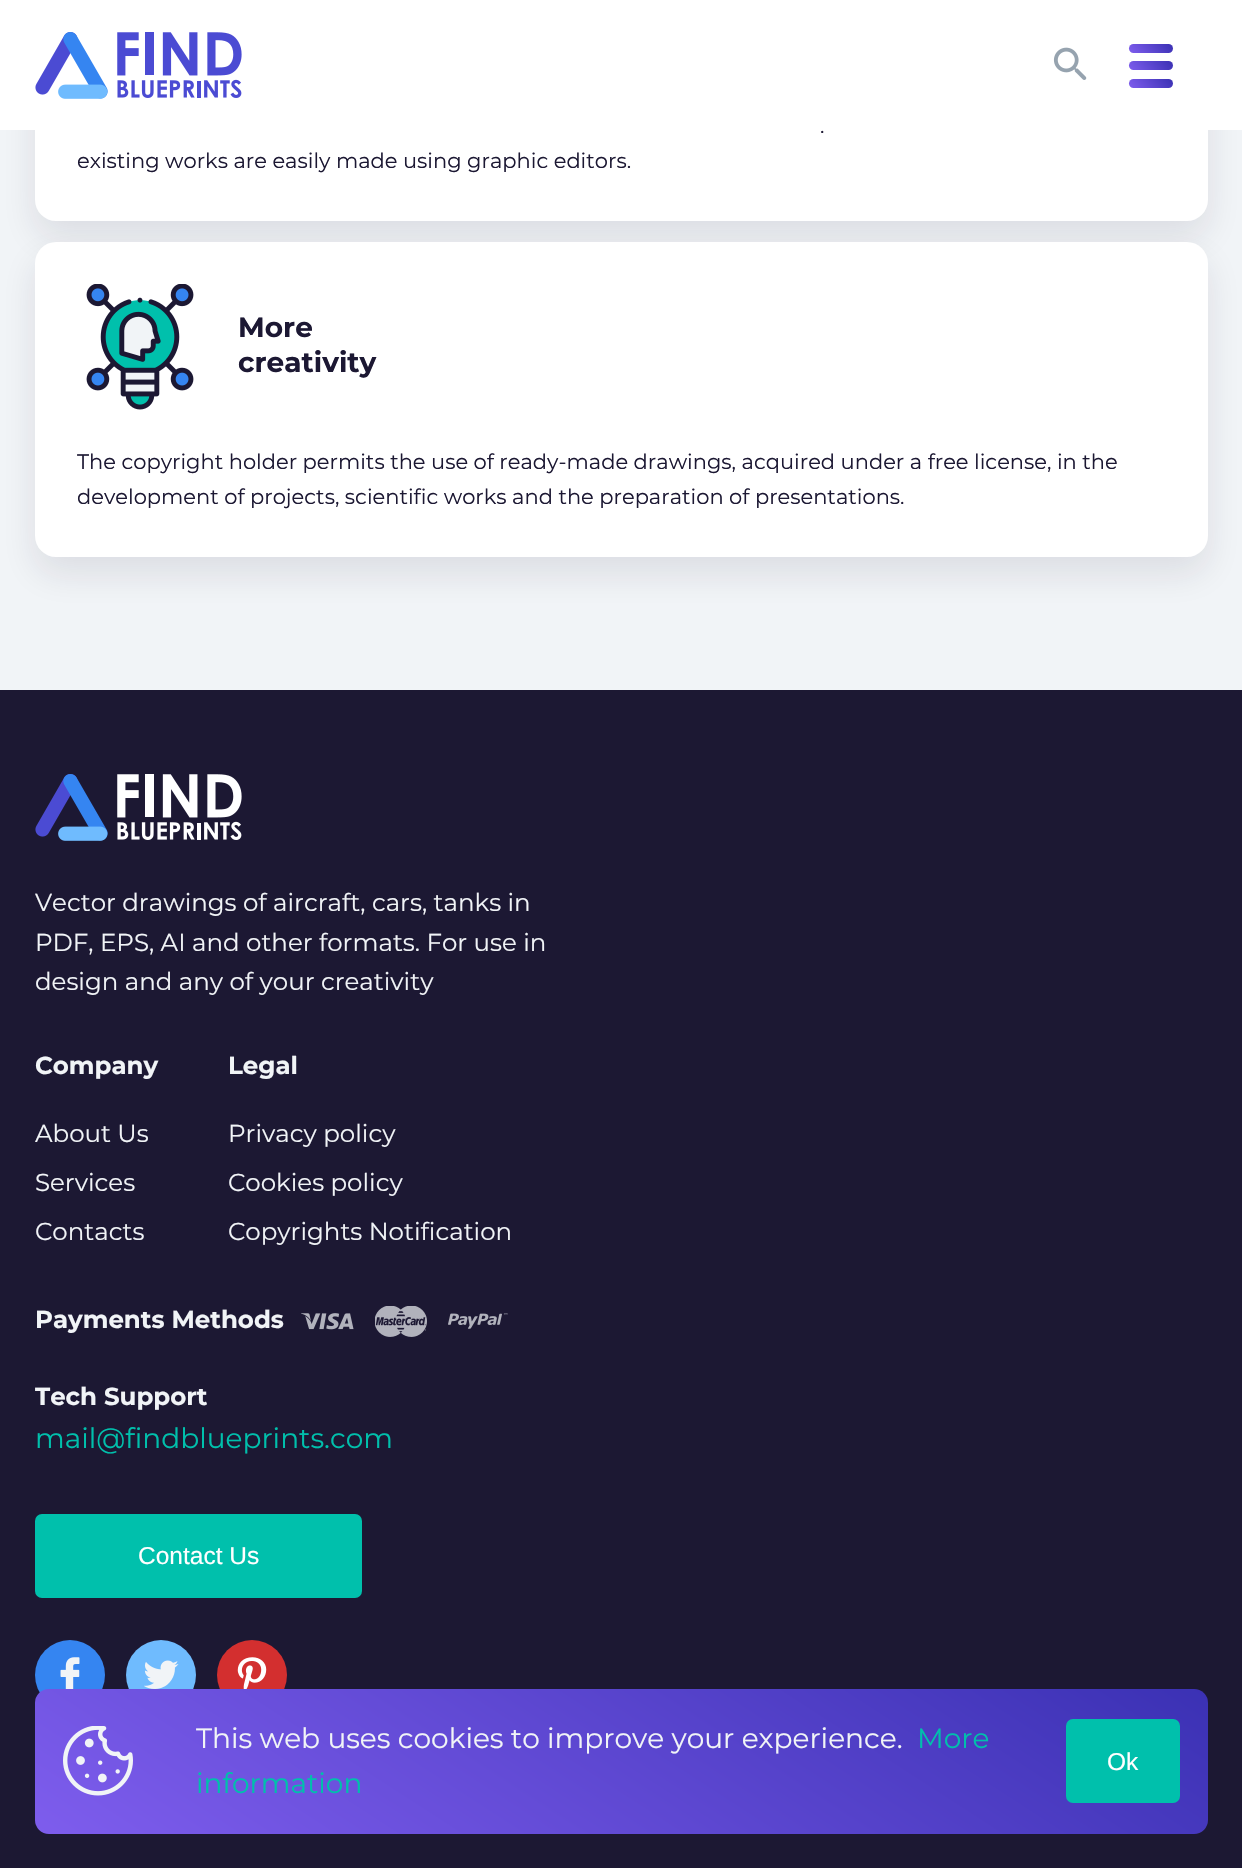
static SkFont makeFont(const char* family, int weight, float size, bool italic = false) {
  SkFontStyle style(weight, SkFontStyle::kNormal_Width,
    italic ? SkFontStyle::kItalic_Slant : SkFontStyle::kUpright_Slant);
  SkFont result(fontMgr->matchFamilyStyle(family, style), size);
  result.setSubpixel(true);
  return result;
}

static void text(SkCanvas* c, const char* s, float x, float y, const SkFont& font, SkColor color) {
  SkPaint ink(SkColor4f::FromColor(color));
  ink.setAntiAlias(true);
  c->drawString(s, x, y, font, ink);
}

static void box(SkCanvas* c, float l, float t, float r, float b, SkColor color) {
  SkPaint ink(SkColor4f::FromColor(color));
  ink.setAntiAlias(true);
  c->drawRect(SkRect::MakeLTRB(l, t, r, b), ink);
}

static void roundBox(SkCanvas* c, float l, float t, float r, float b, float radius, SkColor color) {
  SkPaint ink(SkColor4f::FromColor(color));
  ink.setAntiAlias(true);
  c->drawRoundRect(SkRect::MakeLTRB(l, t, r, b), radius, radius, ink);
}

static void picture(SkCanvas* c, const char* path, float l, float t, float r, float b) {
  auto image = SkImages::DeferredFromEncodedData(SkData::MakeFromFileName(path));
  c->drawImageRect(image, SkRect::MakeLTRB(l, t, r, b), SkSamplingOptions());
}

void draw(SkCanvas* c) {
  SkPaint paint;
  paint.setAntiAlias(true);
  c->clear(0xfff1f4f7);
  paint.setColor(0x1a1c1833);
  paint.setMaskFilter(SkMaskFilter::MakeBlur(kNormal_SkBlurStyle, 17.5f));
  c->drawRoundRect(SkRect::MakeLTRB(35, -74, 1208, 238), 21, 21, paint);
  paint.setMaskFilter(nullptr);
  roundBox(c, 35, -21, 1208, 221, 21, 0xffffffff);
  box(c, 0, 0, 1242, 130, 0xffffffff);
  picture(c, "img_01.png", 35, 32, 242, 99);
  picture(c, "img_02.png", 1053, 47, 1087, 80);
  {
    const SkColor colors[] = {0xff7e5ded, 0xff3b31b4};
    const float stops[] = {0, 1};
    const SkPoint ends[] = {{1135, 60}, {1166, 36}};
    paint.setShader(SkGradientShader::MakeLinear(ends, colors, stops, 2, SkTileMode::kClamp));
    paint.setAlpha(255);
  }
  c->drawRoundRect(SkRect::MakeLTRB(1129, 44, 1173, 53), 4.5f, 4.5f, paint);
  {
    const SkColor colors[] = {0xff7e5ded, 0xff3b31b4};
    const float stops[] = {0, 1};
    const SkPoint ends[] = {{1135, 78}, {1166, 53}};
    paint.setShader(SkGradientShader::MakeLinear(ends, colors, stops, 2, SkTileMode::kClamp));
    paint.setAlpha(255);
  }
  c->drawRoundRect(SkRect::MakeLTRB(1129, 61, 1173, 70), 4.5f, 4.5f, paint);
  {
    const SkColor colors[] = {0xff7e5ded, 0xff3b31b4};
    const float stops[] = {0, 1};
    const SkPoint ends[] = {{1135, 95}, {1166, 71}};
    paint.setShader(SkGradientShader::MakeLinear(ends, colors, stops, 2, SkTileMode::kClamp));
    paint.setAlpha(255);
  }
  c->drawRoundRect(SkRect::MakeLTRB(1129, 79, 1173, 88), 4.5f, 4.5f, paint);
  SkFont face1 = makeFont("Montserrat", 400, 21);
  text(c, ".", 820, 133, face1, 0xff1c1833);
  text(c, "existing works are easily made using graphic editors.", 77, 168, face1, 0xff1c1833);
  paint.setShader(nullptr);
  paint.setColor(0x1a1c1833);
  paint.setMaskFilter(SkMaskFilter::MakeBlur(kNormal_SkBlurStyle, 17.5f));
  c->drawRoundRect(SkRect::MakeLTRB(35, 259, 1208, 574), 21, 21, paint);
  paint.setMaskFilter(nullptr);
  roundBox(c, 35, 242, 1208, 557, 21, 0xffffffff);
  picture(c, "img_03.png", 86, 284, 194, 410);
  SkFont face2 = makeFont("Montserrat", 700, 28);
  text(c, "More", 238, 337, face2, 0xff1c1833);
  text(c, "creativity", 238, 372, face2, 0xff1c1833);
  text(c, "The copyright holder permits the use of ready-made drawings, acquired under a free license, in the", 77, 469, face1, 0xff1c1833);
  text(c, "development of projects, scientific works and the preparation of presentations.", 77, 504, face1, 0xff1c1833);
  box(c, 0, 690, 1242, 1868, 0xff1c1833);
  picture(c, "img_04.png", 35, 774, 242, 841);
  SkFont face3 = makeFont("Montserrat", 400, 24.5f);
  text(c, "Vector drawings of aircraft, cars, tanks in", 35, 911, face3, 0xfff1f4f7);
  text(c, "PDF, EPS, AI and other formats. For use in", 35, 951, face3, 0xfff1f4f7);
  text(c, "design and any of your creativity", 35, 990, face3, 0xfff1f4f7);
  SkFont face4 = makeFont("Montserrat", 700, 24.5f);
  text(c, "Company", 35, 1074, face4, 0xfff1f4f7);
  text(c, "About Us", 35, 1142, face3, 0xfff1f4f7);
  text(c, "Services", 35, 1191, face3, 0xfff1f4f7);
  text(c, "Contacts", 35, 1240, face3, 0xfff1f4f7);
  text(c, "Legal", 228, 1074, face4, 0xfff1f4f7);
  text(c, "Privacy policy", 228, 1142, face3, 0xfff1f4f7);
  text(c, "Cookies policy", 228, 1191, face3, 0xfff1f4f7);
  text(c, "Copyrights Notification", 228, 1240, face3, 0xfff1f4f7);
  text(c, "Payments Methods", 35, 1328, face4, 0xfff1f4f7);
  picture(c, "img_05.png", 301, 1313, 354, 1330);
  picture(c, "img_06.png", 375, 1306, 427, 1337);
  picture(c, "img_07.png", 448, 1313, 508, 1329);
  text(c, "Tech Support", 35, 1405, face4, 0xfff1f4f7);
  SkFont face5 = makeFont("Montserrat", 400, 28);
  text(c, "mail@findblueprints.com", 35, 1448, face5, 0xff00c0ac);
  roundBox(c, 35, 1514, 362, 1598, 7, 0xff00c0ac);
  SkFont face6 = makeFont("Liberation Sans", 400, 24.5f);
  text(c, "Contact Us", 138, 1564, face6, 0xffffffff);
  paint.setColor(0xff3585f1);
  c->drawCircle(70, 1675, 35, paint);
  picture(c, "img_08.png", 60, 1657, 80, 1689);
  paint.setColor(0xff6fbbfe);
  c->drawCircle(161, 1675, 35, paint);
  picture(c, "img_09.png", 144, 1660, 179, 1689);
  paint.setColor(0xffd32f2f);
  c->drawCircle(252, 1675, 35, paint);
  picture(c, "img_10.png", 237, 1657, 267, 1689);
  {
    const SkColor colors[] = {0xff7e5ded, 0xff3b31b4};
    const float stops[] = {0, 1};
    const SkPoint ends[] = {{415, 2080}, {827, 1443}};
    paint.setShader(SkGradientShader::MakeLinear(ends, colors, stops, 2, SkTileMode::kClamp));
    paint.setAlpha(255);
  }
  c->drawRoundRect(SkRect::MakeLTRB(35, 1689, 1208, 1834), 14, 14, paint);
  picture(c, "img_11.png", 63, 1726, 133, 1796);
  text(c, "This web uses cookies to improve your experience.", 196, 1748, face5, 0xfff1f4f7);
  text(c, "More", 917, 1748, face5, 0xff00c0ac);
  text(c, "information", 196, 1793, face5, 0xff00c0ac);
  roundBox(c, 1066, 1719, 1180, 1803, 7, 0xff00c0ac);
  text(c, "Ok", 1107, 1770, face6, 0xffffffff);
}
